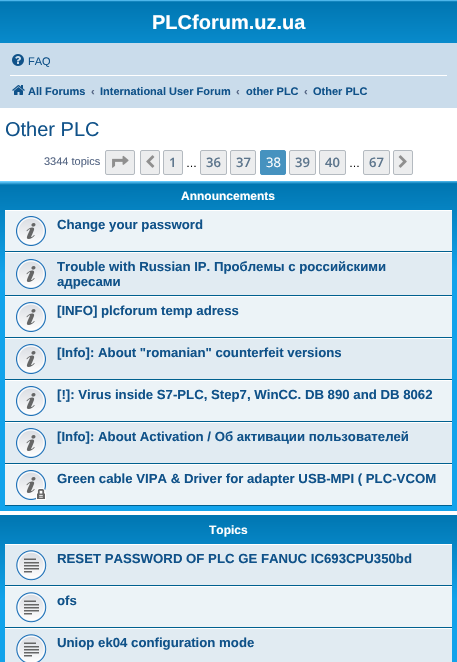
static SkFont makeFont(const char* family, int weight, float size, bool italic = false) {
  SkFontStyle style(weight, SkFontStyle::kNormal_Width,
    italic ? SkFontStyle::kItalic_Slant : SkFontStyle::kUpright_Slant);
  SkFont result(fontMgr->matchFamilyStyle(family, style), size);
  result.setSubpixel(true);
  return result;
}

static void text(SkCanvas* c, const char* s, float x, float y, const SkFont& font, SkColor color) {
  SkPaint ink(SkColor4f::FromColor(color));
  ink.setAntiAlias(true);
  c->drawString(s, x, y, font, ink);
}

static void box(SkCanvas* c, float l, float t, float r, float b, SkColor color) {
  SkPaint ink(SkColor4f::FromColor(color));
  ink.setAntiAlias(true);
  c->drawRect(SkRect::MakeLTRB(l, t, r, b), ink);
}

static void picture(SkCanvas* c, const char* path, float l, float t, float r, float b) {
  auto image = SkImages::DeferredFromEncodedData(SkData::MakeFromFileName(path));
  c->drawImageRect(image, SkRect::MakeLTRB(l, t, r, b), SkSamplingOptions());
}

void draw(SkCanvas* c) {
  SkPaint paint;
  paint.setAntiAlias(true);
  c->clear(0xffffffff);
  {
    const SkColor colors[] = {0xff6aceff, 0xff0076b1, 0xff12a3eb};
    const float stops[] = {0, 0.02f, 1};
    const SkPoint ends[] = {{229, 0}, {229, 92}};
    paint.setShader(SkGradientShader::MakeLinear(ends, colors, stops, 3, SkTileMode::kClamp));
    paint.setAlpha(255);
  }
  c->drawRect(SkRect::MakeLTRB(0, 0, 457, 43), paint);
  SkFont face1 = makeFont("Liberation Sans", 700, 20);
  text(c, "PLCforum.uz.ua", 152, 29, face1, 0xffffffff);
  box(c, 0, 43, 457, 108, 0xffcadceb);
  picture(c, "img_01.png", 12, 54, 24, 66);
  SkFont face2 = makeFont("Liberation Sans", 400, 11);
  text(c, "FAQ", 28, 65, face2, 0xff105289);
  box(c, 10, 75, 447, 76, 0xffffffff);
  picture(c, "img_02.png", 12, 85, 25, 95);
  SkFont face3 = makeFont("Liberation Sans", 700, 11);
  text(c, "All Forums", 28, 95, face3, 0xff105289);
  text(c, "‹", 91, 95, face3, 0xff536482);
  text(c, "International User Forum", 100, 95, face3, 0xff105289);
  text(c, "‹", 236, 95, face3, 0xff536482);
  text(c, "other PLC", 246, 95, face3, 0xff105289);
  text(c, "‹", 304, 95, face3, 0xff536482);
  text(c, "Other PLC", 313, 95, face3, 0xff105289);
  SkFont face4 = makeFont("Liberation Sans", 400, 20);
  text(c, "Other PLC", 5, 136, face4, 0xff105289);
  text(c, "3344 topics", 44, 165, face2, 0xff536482);
  paint.setShader(nullptr);
  paint.setColor(0xffecedee);
  c->drawRoundRect(SkRect::MakeLTRB(105.5f, 150.5f, 134.5f, 174.5f), 1.5f, 1.5f, paint);
  paint.setStyle(SkPaint::kStroke_Style);
  paint.setStrokeWidth(1);
  paint.setColor(0xffb4bac0);
  c->drawRoundRect(SkRect::MakeLTRB(105.5f, 150.5f, 134.5f, 174.5f), 1.5f, 1.5f, paint);
  picture(c, "img_03.png", 112, 155, 129, 168);
  paint.setStyle(SkPaint::kFill_Style);
  paint.setColor(0xffecedee);
  c->drawRoundRect(SkRect::MakeLTRB(140.5f, 150.5f, 159.5f, 174.5f), 1.5f, 1.5f, paint);
  paint.setStyle(SkPaint::kStroke_Style);
  paint.setColor(0xffb4bac0);
  c->drawRoundRect(SkRect::MakeLTRB(140.5f, 150.5f, 159.5f, 174.5f), 1.5f, 1.5f, paint);
  picture(c, "img_04.png", 146, 155, 155, 168);
  paint.setStyle(SkPaint::kFill_Style);
  paint.setColor(0xffecedee);
  c->drawRoundRect(SkRect::MakeLTRB(163.5f, 150.5f, 182.5f, 174.5f), 1.5f, 1.5f, paint);
  paint.setStyle(SkPaint::kStroke_Style);
  paint.setColor(0xffb4bac0);
  c->drawRoundRect(SkRect::MakeLTRB(163.5f, 150.5f, 182.5f, 174.5f), 1.5f, 1.5f, paint);
  SkFont face5 = makeFont("Open Sans", 600, 13);
  text(c, "1", 169, 167, face5, 0xff5c758c);
  text(c, "…", 186, 167, face2, 0xff000000);
  paint.setStyle(SkPaint::kFill_Style);
  paint.setColor(0xffecedee);
  c->drawRoundRect(SkRect::MakeLTRB(200.5f, 150.5f, 226.5f, 174.5f), 1.5f, 1.5f, paint);
  paint.setStyle(SkPaint::kStroke_Style);
  paint.setColor(0xffb4bac0);
  c->drawRoundRect(SkRect::MakeLTRB(200.5f, 150.5f, 226.5f, 174.5f), 1.5f, 1.5f, paint);
  text(c, "36", 206, 167, face5, 0xff5c758c);
  paint.setStyle(SkPaint::kFill_Style);
  paint.setColor(0xffecedee);
  c->drawRoundRect(SkRect::MakeLTRB(230.5f, 150.5f, 255.5f, 174.5f), 1.5f, 1.5f, paint);
  paint.setStyle(SkPaint::kStroke_Style);
  paint.setColor(0xffb4bac0);
  c->drawRoundRect(SkRect::MakeLTRB(230.5f, 150.5f, 255.5f, 174.5f), 1.5f, 1.5f, paint);
  text(c, "37", 236, 167, face5, 0xff5c758c);
  paint.setStyle(SkPaint::kFill_Style);
  paint.setColor(0xff4692bf);
  c->drawRoundRect(SkRect::MakeLTRB(260.5f, 150.5f, 285.5f, 174.5f), 1.5f, 1.5f, paint);
  paint.setStyle(SkPaint::kStroke_Style);
  c->drawRoundRect(SkRect::MakeLTRB(260.5f, 150.5f, 285.5f, 174.5f), 1.5f, 1.5f, paint);
  SkFont face6 = makeFont("Open Sans", 400, 13);
  text(c, "38", 266, 167, face6, 0xffffffff);
  paint.setStyle(SkPaint::kFill_Style);
  paint.setColor(0xffecedee);
  c->drawRoundRect(SkRect::MakeLTRB(289.5f, 150.5f, 315.5f, 174.5f), 1.5f, 1.5f, paint);
  paint.setStyle(SkPaint::kStroke_Style);
  paint.setColor(0xffb4bac0);
  c->drawRoundRect(SkRect::MakeLTRB(289.5f, 150.5f, 315.5f, 174.5f), 1.5f, 1.5f, paint);
  text(c, "39", 295, 167, face5, 0xff5c758c);
  paint.setStyle(SkPaint::kFill_Style);
  paint.setColor(0xffecedee);
  c->drawRoundRect(SkRect::MakeLTRB(319.5f, 150.5f, 345.5f, 174.5f), 1.5f, 1.5f, paint);
  paint.setStyle(SkPaint::kStroke_Style);
  paint.setColor(0xffb4bac0);
  c->drawRoundRect(SkRect::MakeLTRB(319.5f, 150.5f, 345.5f, 174.5f), 1.5f, 1.5f, paint);
  text(c, "40", 325, 167, face5, 0xff5c758c);
  text(c, "…", 349, 167, face2, 0xff000000);
  paint.setStyle(SkPaint::kFill_Style);
  paint.setColor(0xffecedee);
  c->drawRoundRect(SkRect::MakeLTRB(363.5f, 150.5f, 389.5f, 174.5f), 1.5f, 1.5f, paint);
  paint.setStyle(SkPaint::kStroke_Style);
  paint.setColor(0xffb4bac0);
  c->drawRoundRect(SkRect::MakeLTRB(363.5f, 150.5f, 389.5f, 174.5f), 1.5f, 1.5f, paint);
  text(c, "67", 369, 167, face5, 0xff5c758c);
  paint.setStyle(SkPaint::kFill_Style);
  paint.setColor(0xffecedee);
  c->drawRoundRect(SkRect::MakeLTRB(393.5f, 150.5f, 412.5f, 174.5f), 1.5f, 1.5f, paint);
  paint.setStyle(SkPaint::kStroke_Style);
  paint.setColor(0xffb4bac0);
  c->drawRoundRect(SkRect::MakeLTRB(393.5f, 150.5f, 412.5f, 174.5f), 1.5f, 1.5f, paint);
  picture(c, "img_05.png", 398, 155, 407, 168);
  paint.setStyle(SkPaint::kFill_Style);
  {
    const SkColor colors[] = {0xff6aceff, 0xff0076b1, 0xff12a3eb, 0xff12a3eb};
    const float stops[] = {0, 0.01f, 0.28f, 1};
    const SkPoint ends[] = {{228, 181}, {229, 511}};
    paint.setShader(SkGradientShader::MakeLinear(ends, colors, stops, 4, SkTileMode::kClamp));
    paint.setAlpha(255);
  }
  c->drawRect(SkRect::MakeLTRB(0, 181, 457, 511), paint);
  SkFont face7 = makeFont("Liberation Sans", 700, 12);
  text(c, "Announcements", 181, 200, face7, 0xffffffff);
  box(c, 5, 211, 452, 251, 0xffecf3f7);
  box(c, 5, 210, 452, 211, 0xffffffff);
  box(c, 5, 251, 452, 252, 0xff00608f);
  picture(c, "img_06.png", 16, 216, 46, 246);
  SkFont face8 = makeFont("Liberation Sans", 700, 13.2f);
  text(c, "Change your password", 57, 229, face8, 0xff105289);
  box(c, 5, 253, 452, 295, 0xffe1ebf2);
  box(c, 5, 252, 452, 253, 0xffffffff);
  box(c, 5, 295, 452, 296, 0xff00608f);
  picture(c, "img_07.png", 16, 259, 46, 289);
  text(c, "Trouble with Russian IP. Проблемы с российскими", 57, 271, face8, 0xff105289);
  text(c, "адресами", 57, 286, face8, 0xff105289);
  box(c, 5, 297, 452, 337, 0xffecf3f7);
  box(c, 5, 296, 452, 297, 0xffffffff);
  box(c, 5, 337, 452, 338, 0xff00608f);
  picture(c, "img_06.png", 16, 302, 46, 332);
  text(c, "[INFO] plcforum temp adress", 57, 315, face8, 0xff105289);
  box(c, 5, 339, 452, 379, 0xffe1ebf2);
  box(c, 5, 338, 452, 339, 0xffffffff);
  box(c, 5, 379, 452, 380, 0xff00608f);
  picture(c, "img_07.png", 16, 344, 46, 374);
  text(c, "[Info]: About \"romanian\" counterfeit versions", 57, 357, face8, 0xff105289);
  box(c, 5, 381, 452, 421, 0xffecf3f7);
  box(c, 5, 380, 452, 381, 0xffffffff);
  box(c, 5, 421, 452, 422, 0xff00608f);
  picture(c, "img_06.png", 16, 386, 46, 416);
  text(c, "[!]: Virus inside S7-PLC, Step7, WinCC. DB 890 and DB 8062", 57, 399, face8, 0xff105289);
  box(c, 5, 423, 452, 463, 0xffe1ebf2);
  box(c, 5, 422, 452, 423, 0xffffffff);
  box(c, 5, 463, 452, 464, 0xff00608f);
  picture(c, "img_07.png", 16, 428, 46, 458);
  text(c, "[Info]: About Activation / Об активации пользователей", 57, 441, face8, 0xff105289);
  box(c, 5, 465, 452, 505, 0xffecf3f7);
  box(c, 5, 464, 452, 465, 0xffffffff);
  box(c, 5, 505, 452, 506, 0xff00608f);
  picture(c, "img_08.png", 16, 470, 46, 500);
  text(c, "Green cable VIPA & Driver for adapter USB-MPI ( PLC-VCOM", 57, 483, face8, 0xff105289);
  {
    const SkColor colors[] = {0xff6aceff, 0xff0076b1, 0xff12a3eb, 0xff12a3eb};
    const float stops[] = {0, 0, 0.04f, 1};
    const SkPoint ends[] = {{228, 515}, {229, 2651}};
    paint.setShader(SkGradientShader::MakeLinear(ends, colors, stops, 4, SkTileMode::kClamp));
    paint.setAlpha(255);
  }
  c->drawRect(SkRect::MakeLTRB(0, 515, 457, 662), paint);
  text(c, "Topics", 209, 534, face7, 0xffffffff);
  box(c, 5, 545, 452, 585, 0xffe1ebf2);
  box(c, 5, 544, 452, 545, 0xffffffff);
  box(c, 5, 585, 452, 586, 0xff00608f);
  picture(c, "img_09.png", 16, 550, 47, 581);
  text(c, "RESET PASSWORD OF PLC GE FANUC IC693CPU350bd", 57, 563, face8, 0xff105289);
  box(c, 5, 587, 452, 627, 0xffecf3f7);
  box(c, 5, 586, 452, 587, 0xffffffff);
  box(c, 5, 627, 452, 628, 0xff00608f);
  picture(c, "img_10.png", 16, 592, 47, 623);
  text(c, "ofs", 57, 605, face8, 0xff105289);
  box(c, 5, 629, 452, 662, 0xffe1ebf2);
  box(c, 5, 628, 452, 629, 0xffffffff);
  picture(c, "img_11.png", 16, 634, 47, 662);
  text(c, "Uniop ek04 configuration mode", 57, 647, face8, 0xff105289);
}
